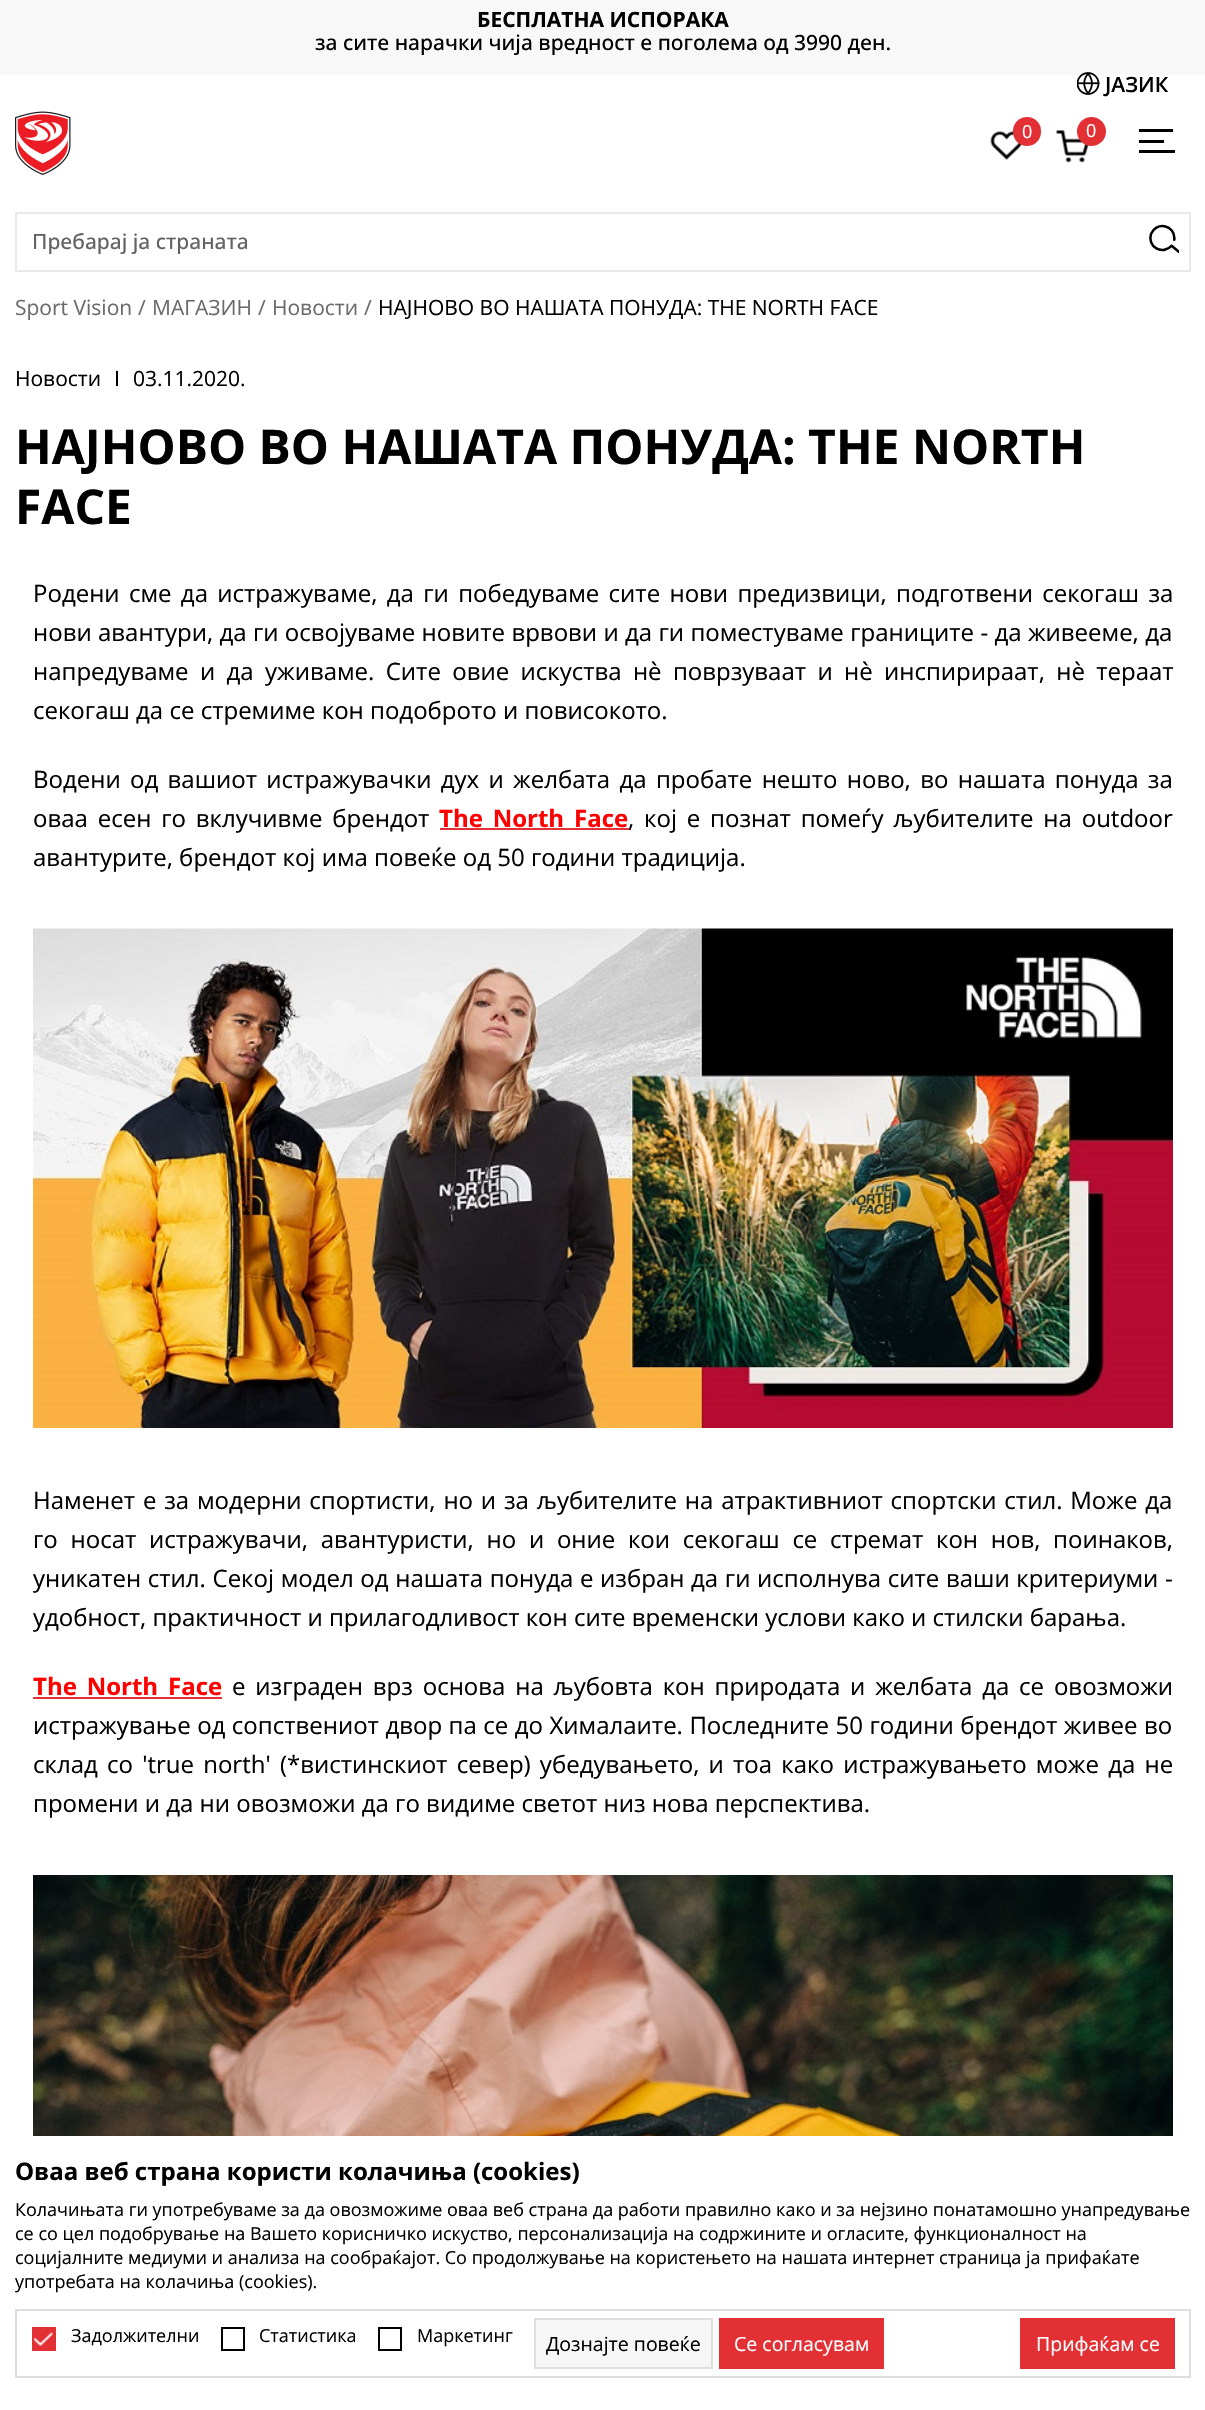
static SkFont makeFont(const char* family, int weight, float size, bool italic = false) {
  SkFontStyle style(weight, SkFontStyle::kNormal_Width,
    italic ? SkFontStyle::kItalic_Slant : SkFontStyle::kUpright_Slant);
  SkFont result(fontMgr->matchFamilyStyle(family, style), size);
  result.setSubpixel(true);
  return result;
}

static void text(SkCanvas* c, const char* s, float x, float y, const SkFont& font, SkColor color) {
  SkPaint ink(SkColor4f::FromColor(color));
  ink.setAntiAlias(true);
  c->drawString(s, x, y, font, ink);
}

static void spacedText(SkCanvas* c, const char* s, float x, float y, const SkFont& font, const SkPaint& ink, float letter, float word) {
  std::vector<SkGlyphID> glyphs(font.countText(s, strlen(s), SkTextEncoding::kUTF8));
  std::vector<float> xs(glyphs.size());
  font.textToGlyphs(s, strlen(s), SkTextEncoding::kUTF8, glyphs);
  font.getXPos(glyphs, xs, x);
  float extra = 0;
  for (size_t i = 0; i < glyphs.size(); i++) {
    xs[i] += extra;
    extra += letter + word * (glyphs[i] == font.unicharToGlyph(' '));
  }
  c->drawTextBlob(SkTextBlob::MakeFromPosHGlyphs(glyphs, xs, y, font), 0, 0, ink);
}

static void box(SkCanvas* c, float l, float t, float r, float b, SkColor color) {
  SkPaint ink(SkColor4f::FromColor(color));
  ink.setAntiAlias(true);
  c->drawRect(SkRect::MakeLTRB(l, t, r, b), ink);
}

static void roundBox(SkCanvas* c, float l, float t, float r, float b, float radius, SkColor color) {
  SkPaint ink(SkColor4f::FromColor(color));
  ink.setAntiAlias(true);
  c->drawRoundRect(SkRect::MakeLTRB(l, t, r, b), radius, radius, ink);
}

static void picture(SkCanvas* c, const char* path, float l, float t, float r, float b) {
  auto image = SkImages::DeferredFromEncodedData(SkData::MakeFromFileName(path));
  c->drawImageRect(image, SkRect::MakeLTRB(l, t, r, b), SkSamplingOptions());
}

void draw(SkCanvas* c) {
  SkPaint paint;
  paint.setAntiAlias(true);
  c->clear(0xffffffff);
  box(c, 0, 0, 1205, 75, 0xfff8f8f8);
  SkFont face1 = makeFont("Open Sans", 700, 21);
  text(c, "БЕСПЛАТНА ИСПОРАКА", 477, 27, face1, 0xff000000);
  SkFont face2 = makeFont("Open Sans", 500, 21);
  text(c, "за сите нарачки чија вредност е поголема од 3990 ден.", 315, 50, face2, 0xff000000);
  picture(c, "img_01.png", 1077, 72, 1100, 95);
  SkFont face3 = makeFont("Open Sans", 600, 21);
  text(c, "ЈАЗИК", 1105, 92, face3, 0xff000000);
  picture(c, "img_02.png", 15, 111, 71, 175);
  picture(c, "img_03.png", 990, 131, 1022, 160);
  roundBox(c, 1013, 117, 1041, 146, 14, 0xffe23034);
  SkFont face4 = makeFont("Open Sans", 400, 18);
  text(c, "0", 1022, 138, face4, 0xffffffff);
  picture(c, "img_04.png", 1056, 130, 1089, 163);
  paint.setColor(0xffe23034);
  c->drawCircle(1091.5f, 131.5f, 14.5f, paint);
  text(c, "0", 1086, 137, face4, 0xffffffff);
  box(c, 1139, 140, 1164, 143, 0xff000000);
  box(c, 1139, 129, 1173, 132, 0xff000000);
  box(c, 1139, 150, 1175, 153, 0xff000000);
  paint.setStyle(SkPaint::kStroke_Style);
  paint.setStrokeWidth(2);
  paint.setColor(0xffe9e9e9);
  c->drawRect(SkRect::MakeLTRB(16, 213, 1190, 271), paint);
  text(c, "Пребарај ја страната", 32, 249, face2, 0xff636363);
  picture(c, "img_05.png", 1149, 224, 1179, 253);
  SkFont face5 = makeFont("Open Sans", 400, 21);
  text(c, "Sport Vision", 15, 315, face5, 0xff6b6b6b);
  text(c, "/", 138, 315, face5, 0xff6b6b6b);
  text(c, "МАГАЗИН", 152, 315, face5, 0xff6b6b6b);
  text(c, "/", 258, 315, face5, 0xff6b6b6b);
  text(c, "Новости", 272, 315, face5, 0xff6b6b6b);
  text(c, "/", 364, 315, face5, 0xff6b6b6b);
  text(c, "НАЈНОВО ВО НАШАТА ПОНУДА: THE NORTH FACE", 378, 315, face5, 0xff000000);
  text(c, "Новости", 15, 386, face5, 0xff000000);
  box(c, 116, 371, 118, 386, 0xff000000);
  text(c, "03.11.2020.", 133, 386, face5, 0xff000000);
  SkFont face6 = makeFont("Open Sans", 700, 48);
  text(c, "НАЈНОВО ВО НАШАТА ПОНУДА: THE NORTH", 15, 464, face6, 0xff000000);
  text(c, "FACE", 15, 524, face6, 0xff000000);
  SkFont face7 = makeFont("Open Sans", 400, 24);
  paint.setStyle(SkPaint::kFill_Style);
  paint.setColor(0xff000000);
  spacedText(c, "Родени сме да истражуваме, да ги победуваме сите нови предизвици, подготвени секогаш за", 33, 602, face7, paint, 0, 3.1f);
  spacedText(c, "нови авантури, да ги освојуваме новите врвови и да ги поместуваме границите - да живееме, да", 33, 641, face7, paint, 0, 0.1f);
  spacedText(c, "напредуваме и да уживаме. Сите овие искуства нè поврзуваат и нè инспирираат, нè тераат", 33, 680, face7, paint, 0, 5.1f);
  text(c, "секогаш да се стремиме кон подоброто и повисокото.", 33, 719, face7, 0xff000000);
  spacedText(c, "Водени од вашиот истражувачки дух и желбата да пробате нешто ново, во нашата понуда за", 33, 788, face7, paint, 0, 3.1f);
  spacedText(c, "оваа есен го вклучивме брендот", 33, 827, face7, paint, 0, 3.6f);
  SkFont face8 = makeFont("Open Sans", 700, 24);
  paint.setColor(0xffff0000);
  spacedText(c, "The North Face", 439, 827, face8, paint, 0, 3.6f);
  paint.setColor(0xff000000);
  spacedText(c, ", кој е познат помеѓу љубителите на outdoor", 628, 827, face7, paint, 0, 3.6f);
  box(c, 440, 828, 629, 830, 0xffe23034);
  text(c, "авантурите, брендот кој има повеќе од 50 години традиција.", 33, 866, face7, 0xff000000);
  picture(c, "img_06.png", 33, 928, 1173, 1428);
  spacedText(c, "Наменет е за модерни спортисти, но и за љубителите на атрактивниот спортски стил. Може да", 33, 1509, face7, paint, 0, 1.6f);
  spacedText(c, "го носат истражувачи, авантуристи, но и оние кои секогаш се стремат кон нов, поинаков,", 33, 1548, face7, paint, 0, 6.5f);
  spacedText(c, "уникатен стил. Секој модел од нашата понуда е избран да ги исполнува сите ваши критериуми -", 33, 1587, face7, paint, 0, 0.4f);
  text(c, "удобност, практичност и прилагодливост кон сите временски услови како и стилски барања.", 33, 1626, face7, 0xff000000);
  paint.setColor(0xffff0000);
  spacedText(c, "The North Face", 33, 1695, face8, paint, 0, 3.6f);
  box(c, 33, 1697, 222, 1699, 0xffe23034);
  paint.setColor(0xff000000);
  spacedText(c, "е изграден врз основа на љубовта кон природата и желбата да се овозможи", 232, 1695, face7, paint, 0, 3.6f);
  spacedText(c, "истражување од сопствениот двор па се до Хималаите. Последните 50 години брендот живее во", 33, 1734, face7, paint, 0, 0.25f);
  spacedText(c, "склад со 'true north' (*вистинскиот север) убедувањето, и тоа како истражувањето може да не", 33, 1773, face7, paint, 0, 3);
  text(c, "промени и да ни овозможи да го видиме светот низ нова перспектива.", 33, 1812, face7, 0xff000000);
  picture(c, "img_07.png", 33, 1875, 1173, 2136);
  text(c, "Оваа веб страна користи колачиња (cookies)", 15, 2180, face8, 0xff000000);
  text(c, "Колачињата ги употребуваме за да овозможиме оваа веб страна да работи правилно како и за нејзино понатамошно унапредување", 15, 2216, face4, 0xff000000);
  text(c, "се со цел подобрување на Вашето корисничко искуство, персонализација на содржините и огласите, функционалност на", 15, 2240, face4, 0xff000000);
  text(c, "социјалните медиуми и анализа на сообраќајот. Со продолжување на користењето на нашата интернет страница ја прифаќате", 15, 2264, face4, 0xff000000);
  text(c, "употребата на колачиња (cookies).", 15, 2288, face4, 0xff000000);
  paint.setStyle(SkPaint::kStroke_Style);
  paint.setColor(0xffdedede);
  c->drawRect(SkRect::MakeLTRB(16, 2310, 1190, 2377), paint);
  box(c, 34, 2329, 54, 2349, 0xffe23034);
  picture(c, "img_08.png", 34, 2332, 53, 2346);
  paint.setColor(0xffe23034);
  c->drawRect(SkRect::MakeLTRB(33, 2328, 55, 2350), paint);
  text(c, "Задолжителни", 71, 2342, face4, 0xff000000);
  paint.setColor(0xff000000);
  c->drawRect(SkRect::MakeLTRB(222, 2328, 244, 2350), paint);
  text(c, "Статистика", 259, 2342, face4, 0xff000000);
  c->drawRect(SkRect::MakeLTRB(379, 2328, 401, 2350), paint);
  text(c, "Маркетинг", 417, 2342, face4, 0xff000000);
  paint.setStyle(SkPaint::kFill_Style);
  paint.setColor(0xfff6f6f6);
  c->drawRect(SkRect::MakeLTRB(535, 2319, 712, 2368), paint);
  paint.setStyle(SkPaint::kStroke_Style);
  paint.setColor(0xffdedede);
  c->drawRect(SkRect::MakeLTRB(535, 2319, 712, 2368), paint);
  SkFont face9 = makeFont("Open Sans", 400, 19.5f);
  text(c, "Дознајте повеќе", 546, 2351, face9, 0xff000000);
  box(c, 719, 2318, 884, 2369, 0xffe23034);
  text(c, "Се согласувам", 734, 2351, face9, 0xffffffff);
  box(c, 1020, 2318, 1175, 2369, 0xffe23034);
  text(c, "Прифаќам се", 1036, 2351, face9, 0xffffffff);
}
